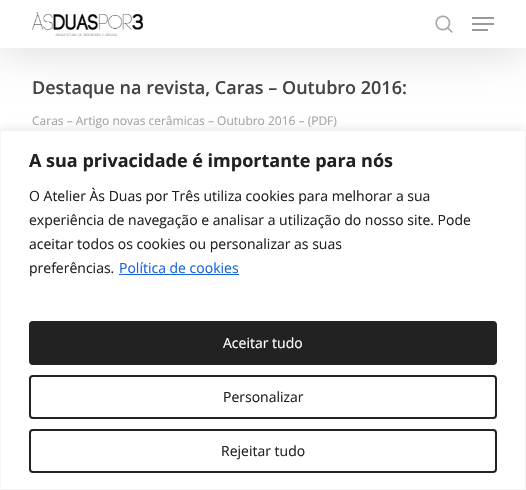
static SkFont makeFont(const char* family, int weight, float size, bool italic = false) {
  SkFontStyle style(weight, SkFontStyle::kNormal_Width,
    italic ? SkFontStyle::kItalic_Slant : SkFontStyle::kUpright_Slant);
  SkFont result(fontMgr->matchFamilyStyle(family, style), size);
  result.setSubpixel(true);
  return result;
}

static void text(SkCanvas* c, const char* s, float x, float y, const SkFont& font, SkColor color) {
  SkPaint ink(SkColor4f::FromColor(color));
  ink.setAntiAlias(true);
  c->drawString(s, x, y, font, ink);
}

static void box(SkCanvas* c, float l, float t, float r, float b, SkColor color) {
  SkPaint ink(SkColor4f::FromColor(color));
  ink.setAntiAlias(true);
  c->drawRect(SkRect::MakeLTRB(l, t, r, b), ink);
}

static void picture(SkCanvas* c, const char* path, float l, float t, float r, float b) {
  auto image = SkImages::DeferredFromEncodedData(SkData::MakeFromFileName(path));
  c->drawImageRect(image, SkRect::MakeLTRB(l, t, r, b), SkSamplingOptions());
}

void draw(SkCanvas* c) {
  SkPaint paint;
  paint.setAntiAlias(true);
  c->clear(0xffffffff);
  paint.setColor(0x26000000);
  paint.setMaskFilter(SkMaskFilter::MakeBlur(kNormal_SkBlurStyle, 22.5f));
  c->drawRect(SkRect::MakeLTRB(0, 3, 526, 51), paint);
  paint.setMaskFilter(nullptr);
  box(c, 0, 0, 526, 48, 0xffffffff);
  picture(c, "img_01.png", 31, 12, 143, 36);
  picture(c, "img_02.png", 435, 15, 453, 33);
  box(c, 472, 17, 494, 19, 0xff999999);
  box(c, 472, 29, 488, 31, 0xff999999);
  box(c, 472, 23, 494, 25, 0xff999999);
  SkFont face1 = makeFont("Open Sans", 600, 18);
  text(c, "Destaque na revista, Caras – Outubro 2016:", 32, 94, face1, 0xff444444);
  SkFont face2 = makeFont("Open Sans", 400, 12);
  text(c, "Caras – Artigo novas cerâmicas – Outubro 2016 – (PDF)", 32, 125, face2, 0xffa3a3a3);
  paint.setColor(0x4dacabab);
  paint.setMaskFilter(SkMaskFilter::MakeBlur(kNormal_SkBlurStyle, 5));
  c->drawRect(SkRect::MakeLTRB(0, 129, 526, 489), paint);
  paint.setMaskFilter(nullptr);
  paint.setColor(0xffffffff);
  c->drawRect(SkRect::MakeLTRB(0.5f, 130.5f, 525.5f, 489.5f), paint);
  paint.setStyle(SkPaint::kStroke_Style);
  paint.setStrokeWidth(1);
  paint.setColor(0xfff4f4f4);
  c->drawRect(SkRect::MakeLTRB(0.5f, 130.5f, 525.5f, 489.5f), paint);
  SkFont face3 = makeFont("Open Sans", 700, 18);
  text(c, "A sua privacidade é importante para nós", 29, 167, face3, 0xff212121);
  SkFont face4 = makeFont("Open Sans", 400, 14);
  text(c, "O Atelier Às Duas por Três utiliza cookies para melhorar a sua", 29, 201, face4, 0xff212121);
  text(c, "experiência de navegação e analisar a utilização do nosso site. Pode", 29, 225, face4, 0xff212121);
  text(c, "aceitar todos os cookies ou personalizar as suas", 29, 249, face4, 0xff212121);
  text(c, "preferências.", 29, 273, face4, 0xff212121);
  text(c, "Política de cookies", 119, 273, face4, 0xff1863dc);
  box(c, 119, 274, 239, 275, 0xff1863dc);
  paint.setStyle(SkPaint::kFill_Style);
  paint.setColor(0xff222222);
  c->drawRoundRect(SkRect::MakeLTRB(30, 322, 496, 364), 3, 3, paint);
  paint.setStyle(SkPaint::kStroke_Style);
  paint.setStrokeWidth(2);
  c->drawRoundRect(SkRect::MakeLTRB(30, 322, 496, 364), 3, 3, paint);
  text(c, "Aceitar tudo", 223, 348, face4, 0xffffffff);
  c->drawRoundRect(SkRect::MakeLTRB(30, 376, 496, 418), 3, 3, paint);
  text(c, "Personalizar", 223, 402, face4, 0xff212121);
  c->drawRoundRect(SkRect::MakeLTRB(30, 430, 496, 472), 3, 3, paint);
  text(c, "Rejeitar tudo", 221, 456, face4, 0xff212121);
}
